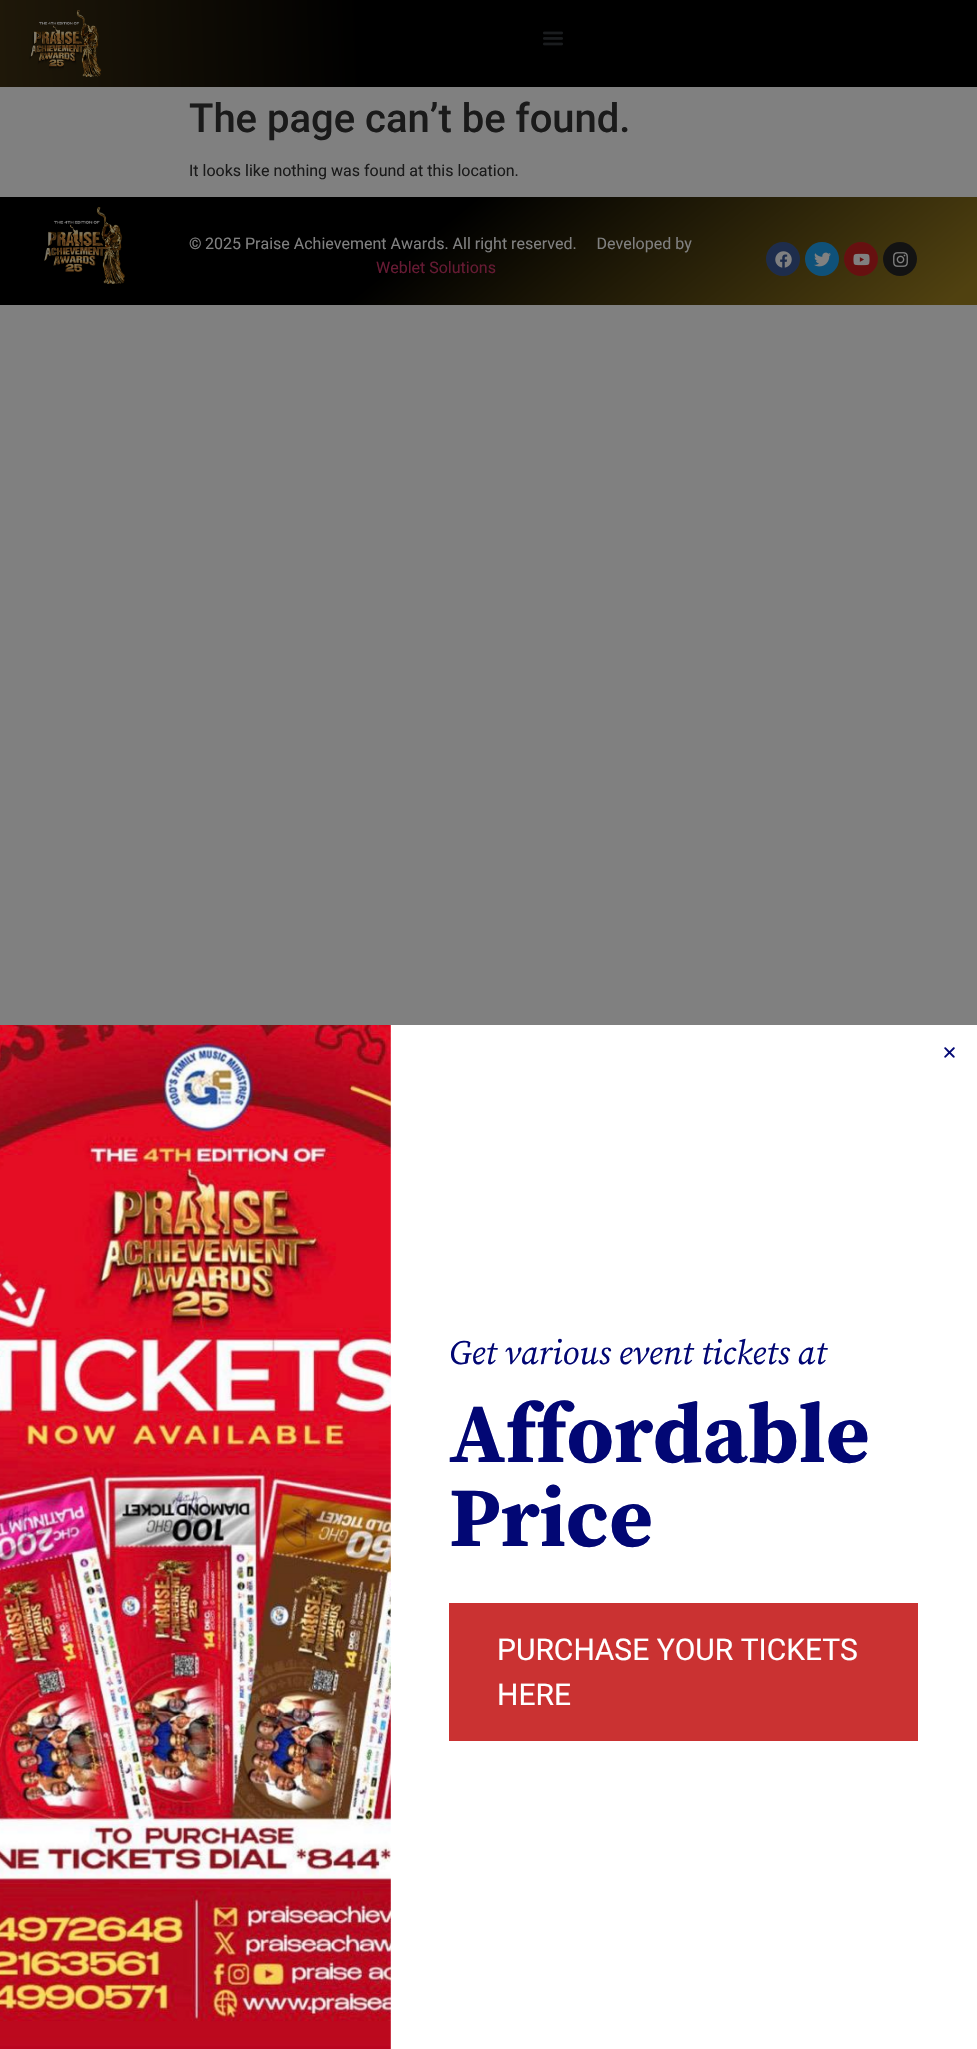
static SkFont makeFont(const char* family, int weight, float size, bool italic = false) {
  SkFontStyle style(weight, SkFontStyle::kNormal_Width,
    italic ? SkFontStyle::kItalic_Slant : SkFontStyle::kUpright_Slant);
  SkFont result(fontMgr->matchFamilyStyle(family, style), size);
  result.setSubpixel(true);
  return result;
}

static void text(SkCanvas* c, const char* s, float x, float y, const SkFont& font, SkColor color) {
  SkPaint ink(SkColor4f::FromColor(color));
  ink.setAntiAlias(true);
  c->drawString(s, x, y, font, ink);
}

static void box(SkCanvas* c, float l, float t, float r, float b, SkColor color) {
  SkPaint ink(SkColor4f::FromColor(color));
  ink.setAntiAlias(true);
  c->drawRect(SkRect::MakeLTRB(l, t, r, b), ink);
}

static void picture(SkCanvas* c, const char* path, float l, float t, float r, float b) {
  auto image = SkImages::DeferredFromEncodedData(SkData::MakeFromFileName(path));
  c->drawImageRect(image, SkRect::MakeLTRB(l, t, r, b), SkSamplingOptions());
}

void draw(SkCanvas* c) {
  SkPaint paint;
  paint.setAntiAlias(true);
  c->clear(0xff808080);
  {
    const SkColor colors[] = {0xff000000, 0xff1f1809};
    const float stops[] = {0.63f, 1};
    const SkPoint ends[] = {{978, 26}, {-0.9f, 61}};
    paint.setShader(SkGradientShader::MakeLinear(ends, colors, stops, 2, SkTileMode::kClamp));
    paint.setAlpha(255);
  }
  c->drawRect(SkRect::MakeLTRB(0, 0, 977, 87), paint);
  picture(c, "img_01.png", 29, 10, 102, 77);
  picture(c, "img_02.png", 543, 31, 563, 46);
  SkFont face1 = makeFont("Roboto", 500, 40);
  text(c, "The page can’t be found.", 189, 132, face1, 0xff1a1a1a);
  SkFont face2 = makeFont("Roboto", 400, 16);
  text(c, "It looks like nothing was found at this location.", 189, 176, face2, 0xff1a1a1a);
  {
    const SkColor colors[] = {0xff504110, 0xff000000};
    const float stops[] = {0.03f, 0.57f};
    const SkPoint ends[] = {{708, 523}, {269, -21}};
    paint.setShader(SkGradientShader::MakeLinear(ends, colors, stops, 2, SkTileMode::kClamp));
    paint.setAlpha(255);
  }
  c->drawRect(SkRect::MakeLTRB(0, 197, 977, 305), paint);
  picture(c, "img_03.png", 44, 207, 125, 284);
  SkFont face3 = makeFont("Roboto", 700, 16);
  text(c, "©", 189, 249, face3, 0xff808080);
  text(c, "2025 Praise Achievement Awards. All right reserved.     Developed by", 205, 249, face2, 0xff808080);
  text(c, "Weblet Solutions", 376, 273, face2, 0xff661a33);
  paint.setShader(nullptr);
  paint.setColor(0xff1e2d4c);
  c->drawCircle(783, 259, 17, paint);
  picture(c, "img_04.png", 775, 251, 792, 268);
  paint.setColor(0xff0f5179);
  c->drawCircle(822, 259, 17, paint);
  picture(c, "img_05.png", 814, 252, 831, 267);
  paint.setColor(0xff671010);
  c->drawCircle(861, 259, 17, paint);
  picture(c, "img_06.png", 853, 253, 870, 266);
  paint.setColor(0xff131313);
  c->drawCircle(900, 259, 17, paint);
  picture(c, "img_07.png", 893, 252, 908, 267);
  box(c, 390, 1025, 977, 2049, 0xffffffff);
  picture(c, "img_08.png", 944, 1047, 955, 1058);
  picture(c, "img_09.png", 0, 1025, 391, 2049);
  SkFont face4 = makeFont("Source Serif Pro", 400, 34, true);
  text(c, "Get various event tickets at", 449, 1364, face4, 0xff020774);
  SkFont face5 = makeFont("Source Serif Pro", 700, 84);
  text(c, "Affordable", 449, 1462, face5, 0xff020774);
  text(c, "Price", 449, 1546, face5, 0xff020774);
  box(c, 449, 1603, 918, 1741, 0xffca3232);
  SkFont face6 = makeFont("Roboto", 400, 30);
  text(c, "PURCHASE YOUR TICKETS", 497, 1660, face6, 0xffffffff);
  text(c, "HERE", 497, 1705, face6, 0xffffffff);
}
